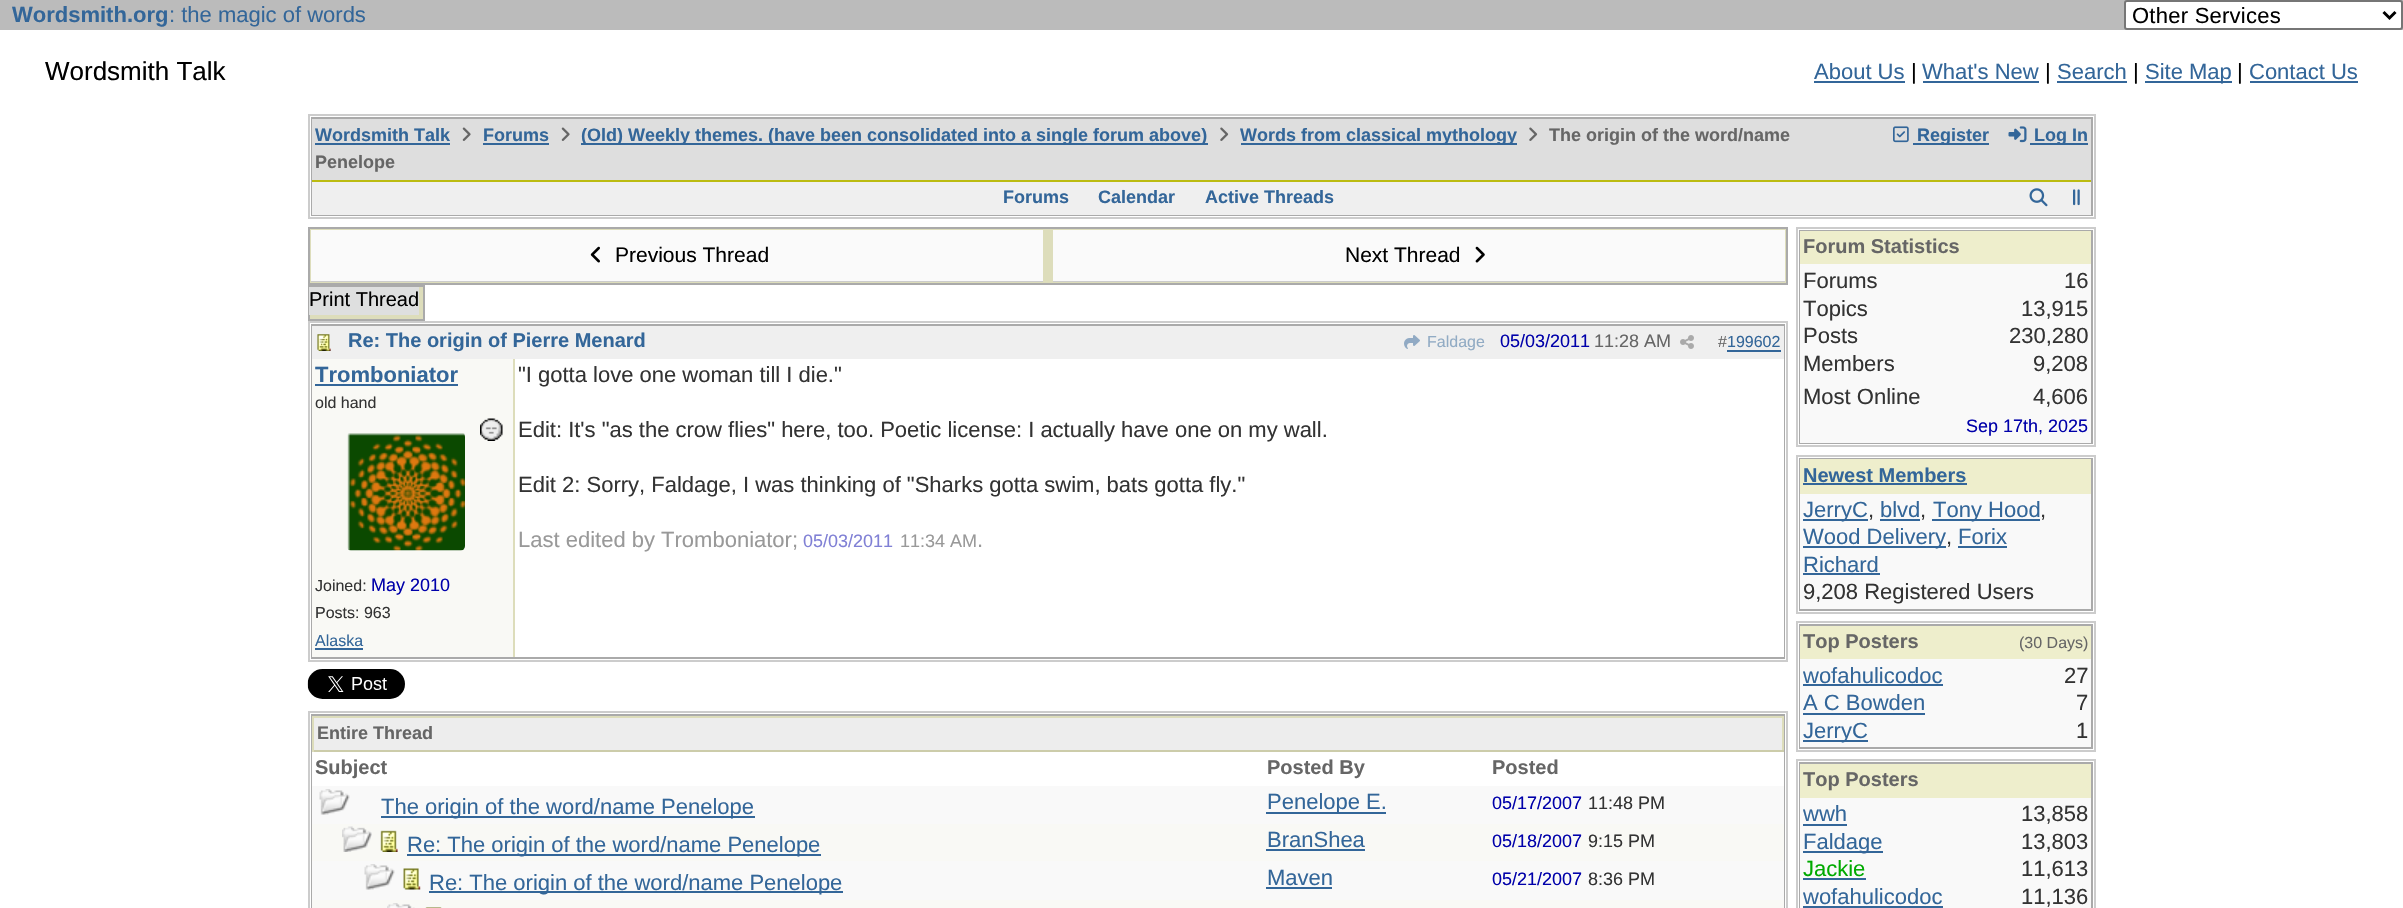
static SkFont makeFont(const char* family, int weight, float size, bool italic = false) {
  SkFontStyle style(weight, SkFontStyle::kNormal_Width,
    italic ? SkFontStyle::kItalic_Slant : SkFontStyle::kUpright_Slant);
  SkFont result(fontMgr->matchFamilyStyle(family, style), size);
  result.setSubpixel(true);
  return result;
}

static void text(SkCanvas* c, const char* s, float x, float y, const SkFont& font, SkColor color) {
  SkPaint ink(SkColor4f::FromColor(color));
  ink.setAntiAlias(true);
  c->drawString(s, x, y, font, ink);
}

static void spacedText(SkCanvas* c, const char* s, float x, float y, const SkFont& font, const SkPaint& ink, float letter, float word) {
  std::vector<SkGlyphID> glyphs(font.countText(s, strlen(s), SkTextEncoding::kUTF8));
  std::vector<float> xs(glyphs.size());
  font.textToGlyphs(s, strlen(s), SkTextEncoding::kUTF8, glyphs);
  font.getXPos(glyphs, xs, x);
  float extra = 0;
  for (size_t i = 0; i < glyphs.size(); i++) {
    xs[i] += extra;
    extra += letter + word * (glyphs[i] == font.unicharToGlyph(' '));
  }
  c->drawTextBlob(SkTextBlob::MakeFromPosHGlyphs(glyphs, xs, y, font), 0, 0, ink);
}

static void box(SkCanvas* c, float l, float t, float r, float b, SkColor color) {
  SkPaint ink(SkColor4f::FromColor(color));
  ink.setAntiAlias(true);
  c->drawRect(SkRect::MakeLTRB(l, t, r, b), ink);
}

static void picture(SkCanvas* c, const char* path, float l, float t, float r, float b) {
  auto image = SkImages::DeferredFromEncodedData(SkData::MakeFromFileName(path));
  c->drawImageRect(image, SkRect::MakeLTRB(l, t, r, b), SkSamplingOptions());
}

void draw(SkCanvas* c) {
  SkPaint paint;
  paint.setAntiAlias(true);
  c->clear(0xffffffff);
  box(c, 0, 0, 2403, 30, 0xffbbbbbb);
  SkFont face1 = makeFont("Liberation Sans", 700, 22);
  text(c, "Wordsmith.org", 12, 22, face1, 0xff336699);
  SkFont face2 = makeFont("Liberation Sans", 400, 22);
  text(c, ": the magic of words", 169, 22, face2, 0xff336699);
  paint.setColor(0xffffffff);
  c->drawRoundRect(SkRect::MakeLTRB(2125, 1, 2402, 29), 2, 2, paint);
  paint.setStyle(SkPaint::kStroke_Style);
  paint.setStrokeWidth(2);
  paint.setColor(0xff767676);
  c->drawRoundRect(SkRect::MakeLTRB(2125, 1, 2402, 29), 2, 2, paint);
  paint.setStrokeWidth(3);
  paint.setColor(0xff000000);
  c->drawPath(SkPathBuilder().moveTo(2383.5f, 12).lineTo(2389.5f, 18).lineTo(2395.5f, 12).detach(), paint);
  paint.setStyle(SkPaint::kFill_Style);
  spacedText(c, "Other Services", 2132, 23, face2, paint, 0.25f, 0);
  SkFont face3 = makeFont("Liberation Sans", 400, 26);
  text(c, "Wordsmith Talk", 45, 80, face3, 0xff000000);
  text(c, "About Us", 1814, 79, face2, 0xff336699);
  box(c, 1814, 81, 1905, 83, 0xff336699);
  text(c, "|", 1911, 79, face2, 0xff000000);
  text(c, "What's New", 1922, 79, face2, 0xff336699);
  box(c, 1923, 81, 2039, 83, 0xff336699);
  text(c, "|", 2045, 79, face2, 0xff000000);
  text(c, "Search", 2057, 79, face2, 0xff336699);
  box(c, 2057, 81, 2127, 83, 0xff336699);
  text(c, "|", 2133, 79, face2, 0xff000000);
  box(c, 2145, 81, 2232, 83, 0xff336699);
  text(c, "Site Map", 2145, 79, face2, 0xff336699);
  text(c, "|", 2237, 79, face2, 0xff000000);
  text(c, "Contact Us", 2249, 79, face2, 0xff336699);
  box(c, 2250, 81, 2358, 83, 0xff336699);
  paint.setStyle(SkPaint::kStroke_Style);
  paint.setStrokeWidth(2);
  paint.setColor(0xffcccccc);
  c->drawRect(SkRect::MakeLTRB(309, 115, 2095, 218), paint);
  paint.setColor(0xffaaaaaa);
  c->drawRect(SkRect::MakeLTRB(312, 118, 2092, 215), paint);
  box(c, 312, 119, 2091, 180, 0xffdedede);
  SkFont face4 = makeFont("Liberation Sans", 700, 18);
  text(c, "Wordsmith Talk", 315, 141, face4, 0xff336699);
  box(c, 315, 143, 450, 145, 0xff336699);
  picture(c, "img_01.png", 462, 127, 471, 141);
  text(c, "Forums", 483, 141, face4, 0xff336699);
  box(c, 483, 143, 549, 145, 0xff336699);
  picture(c, "img_01.png", 561, 127, 570, 141);
  box(c, 581, 143, 1208, 145, 0xff336699);
  text(c, "(Old) Weekly themes. (have been consolidated into a single forum above)", 581, 141, face4, 0xff336699);
  picture(c, "img_02.png", 1220, 127, 1229, 141);
  box(c, 1241, 143, 1517, 145, 0xff336699);
  text(c, "Words from classical mythology", 1240, 141, face4, 0xff336699);
  picture(c, "img_02.png", 1529, 127, 1538, 141);
  text(c, "The origin of the word/name", 1549, 141, face4, 0xff666666);
  text(c, "Penelope", 315, 168, face4, 0xff666666);
  picture(c, "img_03.png", 1893, 126, 1909, 143);
  box(c, 1913, 143, 1989, 145, 0xff336699);
  text(c, "Register", 1917, 141, face4, 0xff336699);
  picture(c, "img_04.png", 2008, 126, 2027, 143);
  box(c, 2030, 143, 2088, 145, 0xff336699);
  text(c, "Log In", 2034, 141, face4, 0xff336699);
  box(c, 312, 182, 2091, 215, 0xffefefef);
  box(c, 312, 180, 2091, 182, 0xffbbbb11);
  text(c, "Forums", 1003, 203, face4, 0xff336699);
  text(c, "Calendar", 1098, 203, face4, 0xff336699);
  text(c, "Active Threads", 1205, 203, face4, 0xff336699);
  picture(c, "img_05.png", 2029, 188, 2048, 207);
  picture(c, "img_06.png", 2073, 189, 2080, 206);
  paint.setStyle(SkPaint::kFill_Style);
  paint.setColor(0xffddddbb);
  c->drawRect(SkRect::MakeLTRB(309, 228, 1787, 284), paint);
  paint.setStyle(SkPaint::kStroke_Style);
  paint.setColor(0xffaaaaaa);
  c->drawRect(SkRect::MakeLTRB(309, 228, 1787, 284), paint);
  box(c, 311, 230, 1043, 281, 0xfffafafa);
  box(c, 311, 281, 1043, 282, 0xffcccccc);
  picture(c, "img_07.png", 590, 246, 600, 263);
  SkFont face5 = makeFont("Liberation Sans", 400, 21);
  text(c, "Previous Thread", 615, 262, face5, 0xff000000);
  box(c, 1053, 230, 1785, 281, 0xfffafafa);
  box(c, 1053, 281, 1785, 282, 0xffcccccc);
  text(c, "Next Thread", 1345, 262, face5, 0xff000000);
  picture(c, "img_08.png", 1475, 246, 1485, 263);
  paint.setStyle(SkPaint::kFill_Style);
  paint.setColor(0xffddddbb);
  c->drawRect(SkRect::MakeLTRB(309, 286, 424, 320), paint);
  paint.setStyle(SkPaint::kStroke_Style);
  paint.setColor(0xffaaaaaa);
  c->drawRect(SkRect::MakeLTRB(309, 286, 424, 320), paint);
  box(c, 309, 287, 419, 315, 0xffdedfdf);
  SkFont face6 = makeFont("Liberation Sans", 400, 20);
  text(c, "Print Thread", 309, 306, face6, 0xff000000);
  paint.setColor(0xffcccccc);
  c->drawRect(SkRect::MakeLTRB(309, 322, 1787, 661), paint);
  paint.setColor(0xffaaaaaa);
  c->drawRect(SkRect::MakeLTRB(312, 325, 1784, 658), paint);
  box(c, 312, 326, 1784, 359, 0xffefefef);
  picture(c, "img_09.png", 317, 334, 331, 351);
  SkFont face7 = makeFont("Liberation Sans", 700, 20);
  text(c, "Re: The origin of Pierre Menard", 348, 347, face7, 0xff336699);
  picture(c, "img_10.png", 1404, 335, 1420, 349);
  SkFont face8 = makeFont("Liberation Sans", 400, 16);
  text(c, "Faldage", 1427, 347, face8, 0xff91abc4);
  SkFont face9 = makeFont("Liberation Sans", 400, 18);
  text(c, "05/03/2011", 1500, 347, face9, 0xff0000aa);
  text(c, "11:28 AM", 1594, 347, face9, 0xff666666);
  picture(c, "img_11.png", 1680, 335, 1694, 349);
  text(c, "#", 1718, 347, face8, 0xff666666);
  text(c, "199602", 1727, 347, face8, 0xff336699);
  box(c, 1727, 350, 1781, 352, 0xff336699);
  box(c, 312, 359, 513, 657, 0xfff9f9f5);
  text(c, "Tromboniator", 315, 382, face1, 0xff336699);
  box(c, 315, 384, 458, 386, 0xff336699);
  text(c, "old hand", 315, 408, face8, 0xff333333);
  picture(c, "img_12.png", 480, 418, 503, 441);
  picture(c, "img_13.png", 347, 433, 465, 551);
  text(c, "Joined:", 315, 591, face8, 0xff333333);
  text(c, "May 2010", 371, 591, face9, 0xff0000aa);
  text(c, "Posts: 963", 315, 618, face8, 0xff333333);
  text(c, "Alaska", 315, 646, face8, 0xff336699);
  box(c, 315, 648, 363, 650, 0xff336699);
  box(c, 1783, 359, 1784, 657, 0xffffffff);
  box(c, 513, 359, 515, 657, 0xffddddbb);
  text(c, "\"I gotta love one woman till I die.\"", 518, 382, face2, 0xff333333);
  text(c, "Edit: It's \"as the crow flies\" here, too. Poetic license: I actually have one on my wall.", 518, 437, face2, 0xff333333);
  text(c, "Edit 2: Sorry, Faldage, I was thinking of \"Sharks gotta swim, bats gotta fly.\"", 518, 492, face2, 0xff333333);
  text(c, "Last edited by Tromboniator;", 518, 547, face2, 0xff999999);
  text(c, "05/03/2011", 803, 547, face9, 0xff8080d5);
  text(c, "11:34 AM", 900, 547, face9, 0xff999999);
  text(c, ".", 977, 547, face2, 0xff999999);
  picture(c, "img_14.png", 307, 669, 405, 699);
  paint.setColor(0xffcccccc);
  c->drawRect(SkRect::MakeLTRB(309, 712, 1787, 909), paint);
  paint.setColor(0xffaaaaaa);
  c->drawRect(SkRect::MakeLTRB(312, 715, 1784, 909), paint);
  box(c, 314, 718, 1782, 750, 0xffededed);
  box(c, 312, 716, 1784, 718, 0xffddddbb);
  box(c, 1782, 716, 1784, 752, 0xffddddbb);
  box(c, 312, 750, 1784, 752, 0xffccccaa);
  box(c, 312, 716, 314, 752, 0xffddddbb);
  text(c, "Entire Thread", 317, 739, face4, 0xff666666);
  box(c, 312, 752, 313, 786, 0xfffefefe);
  text(c, "Subject", 315, 774, face7, 0xff666666);
  text(c, "Posted By", 1267, 774, face7, 0xff666666);
  box(c, 1783, 752, 1784, 786, 0xfffefefe);
  text(c, "Posted", 1492, 774, face7, 0xff666666);
  box(c, 312, 786, 1784, 824, 0xfff9f9f9);
  picture(c, "img_15.png", 319, 789, 350, 815);
  box(c, 381, 816, 755, 818, 0xff336699);
  text(c, "The origin of the word/name Penelope", 381, 814, face2, 0xff336699);
  box(c, 1266, 812, 1386, 814, 0xff336699);
  text(c, "Penelope E.", 1267, 809, face2, 0xff336699);
  text(c, "05/17/2007", 1492, 809, face9, 0xff0000aa);
  text(c, "11:48 PM", 1588, 809, face9, 0xff333333);
  box(c, 312, 824, 1784, 861, 0xfff9f9f5);
  picture(c, "img_16.png", 342, 826, 372, 852);
  picture(c, "img_17.png", 380, 830, 398, 852);
  box(c, 407, 854, 821, 856, 0xff336699);
  text(c, "Re: The origin of the word/name Penelope", 407, 852, face2, 0xff336699);
  text(c, "BranShea", 1267, 847, face2, 0xff336699);
  box(c, 1266, 849, 1365, 851, 0xff336699);
  text(c, "05/18/2007", 1492, 847, face9, 0xff0000aa);
  text(c, "9:15 PM", 1588, 847, face9, 0xff333333);
  box(c, 312, 861, 1784, 900, 0xfff9f9f9);
  picture(c, "img_18.png", 364, 864, 395, 890);
  picture(c, "img_19.png", 403, 868, 421, 890);
  box(c, 429, 891, 843, 893, 0xff336699);
  text(c, "Re: The origin of the word/name Penelope", 429, 890, face2, 0xff336699);
  text(c, "Maven", 1267, 885, face2, 0xff336699);
  box(c, 1266, 887, 1332, 889, 0xff336699);
  text(c, "05/21/2007", 1492, 885, face9, 0xff0000aa);
  text(c, "8:36 PM", 1588, 885, face9, 0xff333333);
  box(c, 312, 900, 1784, 908, 0xfff9f9f5);
  picture(c, "img_20.png", 387, 903, 415, 908);
  picture(c, "img_21.png", 425, 907, 442, 908);
  paint.setColor(0xffcccccc);
  c->drawRect(SkRect::MakeLTRB(1797, 228, 2095, 446), paint);
  paint.setColor(0xffaaaaaa);
  c->drawRect(SkRect::MakeLTRB(1800, 231, 2092, 443), paint);
  box(c, 1800, 231, 2091, 264, 0xffeeeecc);
  text(c, "Forum Statistics", 1803, 253, face7, 0xff666666);
  box(c, 1800, 264, 2091, 443, 0xfff9f9f9);
  text(c, "Forums", 1803, 288, face2, 0xff333333);
  text(c, "16", 2064, 288, face2, 0xff333333);
  text(c, "Topics", 1803, 316, face2, 0xff333333);
  text(c, "13,915", 2021, 316, face2, 0xff333333);
  text(c, "Posts", 1803, 343, face2, 0xff333333);
  text(c, "230,280", 2009, 343, face2, 0xff333333);
  text(c, "Members", 1803, 371, face2, 0xff333333);
  text(c, "9,208", 2033, 371, face2, 0xff333333);
  text(c, "Most Online", 1803, 404, face2, 0xff333333);
  text(c, "4,606", 2033, 404, face2, 0xff333333);
  text(c, "Sep 17th, 2025", 1966, 432, face9, 0xff0000aa);
  paint.setColor(0xffcccccc);
  c->drawRect(SkRect::MakeLTRB(1797, 456, 2095, 613), paint);
  paint.setColor(0xffaaaaaa);
  c->drawRect(SkRect::MakeLTRB(1800, 459, 2092, 610), paint);
  box(c, 1800, 459, 2091, 494, 0xffeeeecc);
  text(c, "Newest Members", 1803, 482, face7, 0xff336699);
  box(c, 1803, 483, 1967, 485, 0xff336699);
  box(c, 1800, 494, 2091, 609, 0xfff9f9f9);
  box(c, 1803, 519, 1868, 521, 0xff336699);
  text(c, "JerryC", 1803, 517, face2, 0xff336699);
  text(c, ",", 1868, 517, face2, 0xff333333);
  text(c, "blvd", 1880, 517, face2, 0xff336699);
  box(c, 1880, 519, 1920, 521, 0xff336699);
  text(c, ",", 1920, 517, face2, 0xff333333);
  box(c, 1932, 519, 2040, 521, 0xff336699);
  text(c, "Tony Hood", 1933, 517, face2, 0xff336699);
  text(c, ",", 2040, 517, face2, 0xff333333);
  box(c, 1803, 546, 1946, 548, 0xff336699);
  text(c, "Wood Delivery", 1803, 544, face2, 0xff336699);
  text(c, ",", 1946, 544, face2, 0xff333333);
  text(c, "Forix", 1958, 544, face2, 0xff336699);
  box(c, 1958, 546, 2007, 548, 0xff336699);
  text(c, "Richard", 1803, 572, face2, 0xff336699);
  box(c, 1803, 573, 1880, 575, 0xff336699);
  text(c, "9,208 Registered Users", 1803, 599, face2, 0xff333333);
  paint.setColor(0xffcccccc);
  c->drawRect(SkRect::MakeLTRB(1797, 622, 2095, 751), paint);
  paint.setColor(0xffaaaaaa);
  c->drawRect(SkRect::MakeLTRB(1800, 625, 2092, 748), paint);
  box(c, 1800, 626, 2091, 659, 0xffeeeecc);
  text(c, "Top Posters", 1803, 648, face7, 0xff666666);
  text(c, "(30 Days)", 2019, 648, face8, 0xff666666);
  box(c, 1800, 659, 2091, 747, 0xfff9f9f9);
  text(c, "wofahulicodoc", 1803, 683, face2, 0xff336699);
  box(c, 1803, 684, 1943, 686, 0xff336699);
  text(c, "27", 2064, 683, face2, 0xff333333);
  text(c, "A C Bowden", 1803, 710, face2, 0xff336699);
  box(c, 1803, 713, 1925, 715, 0xff336699);
  text(c, "7", 2076, 710, face2, 0xff333333);
  box(c, 1803, 740, 1868, 742, 0xff336699);
  text(c, "JerryC", 1803, 738, face2, 0xff336699);
  text(c, "1", 2076, 738, face2, 0xff333333);
  paint.setColor(0xffcccccc);
  c->drawRect(SkRect::MakeLTRB(1797, 760, 2095, 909), paint);
  paint.setColor(0xffaaaaaa);
  c->drawRect(SkRect::MakeLTRB(1800, 763, 2092, 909), paint);
  box(c, 1800, 764, 2091, 798, 0xffeeeecc);
  text(c, "Top Posters", 1803, 786, face7, 0xff666666);
  box(c, 1800, 798, 2091, 908, 0xfff9f9f9);
  text(c, "wwh", 1803, 821, face2, 0xff336699);
  box(c, 1803, 824, 1847, 826, 0xff336699);
  text(c, "13,858", 2021, 821, face2, 0xff333333);
  box(c, 1803, 851, 1883, 853, 0xff336699);
  text(c, "Faldage", 1803, 849, face2, 0xff336699);
  text(c, "13,803", 2021, 849, face2, 0xff333333);
  text(c, "Jackie", 1803, 876, face2, 0xff00aa00);
  box(c, 1803, 878, 1866, 880, 0xff336699);
  text(c, "11,613", 2021, 876, face2, 0xff333333);
  text(c, "wofahulicodoc", 1803, 904, face2, 0xff336699);
  box(c, 1803, 906, 1943, 908, 0xff336699);
  text(c, "11,136", 2021, 904, face2, 0xff333333);
}
